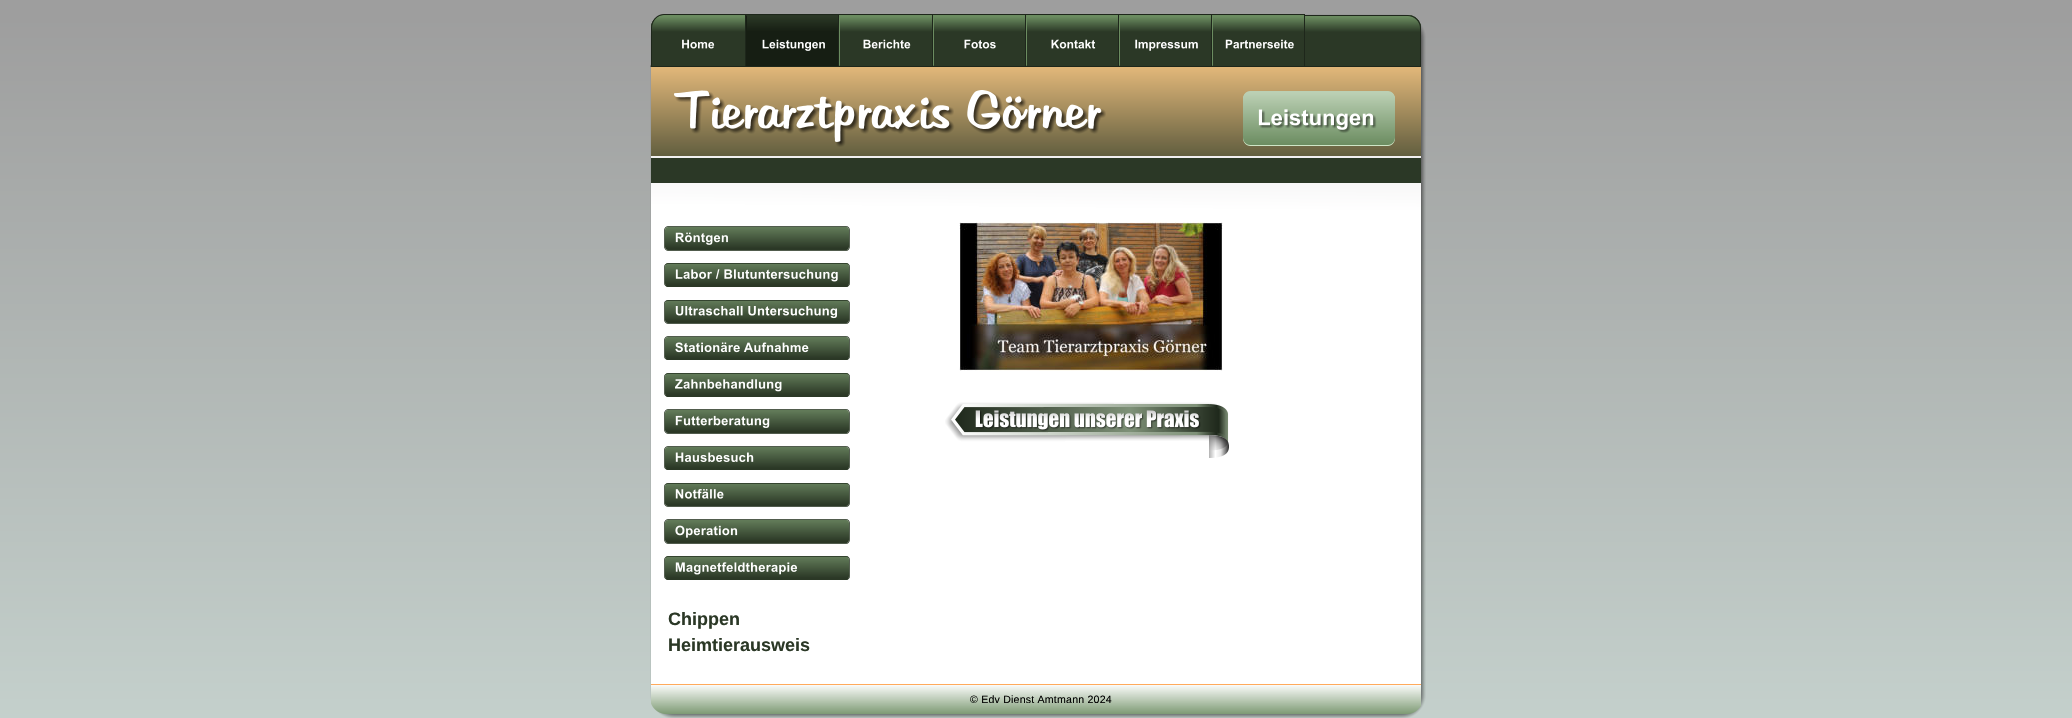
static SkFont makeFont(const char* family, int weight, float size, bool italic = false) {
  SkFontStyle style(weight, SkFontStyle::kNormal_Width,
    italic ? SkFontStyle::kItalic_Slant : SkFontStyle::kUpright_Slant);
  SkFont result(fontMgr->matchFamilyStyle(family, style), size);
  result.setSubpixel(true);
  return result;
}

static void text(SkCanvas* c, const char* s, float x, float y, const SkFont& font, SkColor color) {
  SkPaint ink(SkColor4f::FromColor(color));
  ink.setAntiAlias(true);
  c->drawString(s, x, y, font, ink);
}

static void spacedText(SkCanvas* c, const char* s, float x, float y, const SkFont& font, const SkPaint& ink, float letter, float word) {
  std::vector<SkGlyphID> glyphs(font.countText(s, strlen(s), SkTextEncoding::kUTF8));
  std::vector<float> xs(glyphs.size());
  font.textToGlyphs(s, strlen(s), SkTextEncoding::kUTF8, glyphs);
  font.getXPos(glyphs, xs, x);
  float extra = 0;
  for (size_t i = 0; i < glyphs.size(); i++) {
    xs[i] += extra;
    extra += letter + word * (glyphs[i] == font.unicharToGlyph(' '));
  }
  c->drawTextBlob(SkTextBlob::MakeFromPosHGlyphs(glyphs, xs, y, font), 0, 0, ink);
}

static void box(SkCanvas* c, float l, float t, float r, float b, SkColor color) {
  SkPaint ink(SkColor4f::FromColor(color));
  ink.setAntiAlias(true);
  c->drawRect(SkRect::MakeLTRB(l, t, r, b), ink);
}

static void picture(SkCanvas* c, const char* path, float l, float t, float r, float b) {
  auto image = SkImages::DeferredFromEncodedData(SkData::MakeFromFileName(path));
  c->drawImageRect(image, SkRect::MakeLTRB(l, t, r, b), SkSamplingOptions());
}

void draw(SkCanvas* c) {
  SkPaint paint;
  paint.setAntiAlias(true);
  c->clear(0xffffffff);
  picture(c, "img_01.png", 0, 0, 2072, 718);
  picture(c, "img_02.png", 650, 14, 1426, 718);
  picture(c, "img_21.png", 651, 15, 1421, 27);
  {
    const SkColor colors[] = {0xffe5b97b, 0xff2b3826};
    const float stops[] = {0, 1};
    const SkPoint ends[] = {{1036, 65}, {1036, 194}};
    paint.setShader(SkGradientShader::MakeLinear(ends, colors, stops, 2, SkTileMode::kClamp));
    paint.setAlpha(255);
  }
  c->drawRect(SkRect::MakeLTRB(651, 66, 1421, 156), paint);
  picture(c, "img_22.png", 651, 15, 1421, 67);
  picture(c, "img_03.png", 650, 14, 746, 67);
  picture(c, "img_04.png", 746, 14, 839, 66);
  picture(c, "img_05.png", 746, 15, 838, 66);
  picture(c, "img_06.png", 839, 14, 933, 66);
  picture(c, "img_07.png", 933, 14, 1026, 66);
  picture(c, "img_08.png", 1026, 14, 1119, 66);
  picture(c, "img_09.png", 1119, 14, 1212, 66);
  picture(c, "img_10.png", 1212, 14, 1305, 66);
  picture(c, "img_11.png", 664, 226, 850, 251);
  picture(c, "img_12.png", 664, 263, 850, 287);
  picture(c, "img_13.png", 664, 300, 850, 324);
  picture(c, "img_14.png", 664, 336, 850, 360);
  picture(c, "img_15.png", 664, 373, 850, 397);
  picture(c, "img_16.png", 664, 409, 850, 434);
  picture(c, "img_17.png", 664, 446, 850, 470);
  picture(c, "img_18.png", 664, 483, 850, 507);
  picture(c, "img_19.png", 664, 519, 850, 544);
  picture(c, "img_20.png", 664, 556, 850, 580);
  picture(c, "img_23.png", 674, 90, 1106, 147);
  picture(c, "img_24.png", 1243, 91, 1395, 146);
  box(c, 651, 158, 1421, 183, 0xff2b3826);
  picture(c, "img_25.png", 959, 222, 1223, 371);
  picture(c, "img_26.png", 945, 402, 1229, 458);
  SkFont face1 = makeFont("Liberation Sans", 700, 18);
  text(c, "Chippen", 668, 625, face1, 0xff2b3826);
  text(c, "Heimtierausweis", 668, 651, face1, 0xff2b3826);
  picture(c, "img_27.png", 651, 684, 1421, 714);
  SkFont face2 = makeFont("Liberation Sans", 400, 10.6f);
  paint.setShader(nullptr);
  paint.setColor(0xff000000);
  spacedText(c, "© Edv Dienst Amtmann 2024", 970, 703, face2, paint, 0.2f, 0);
}
